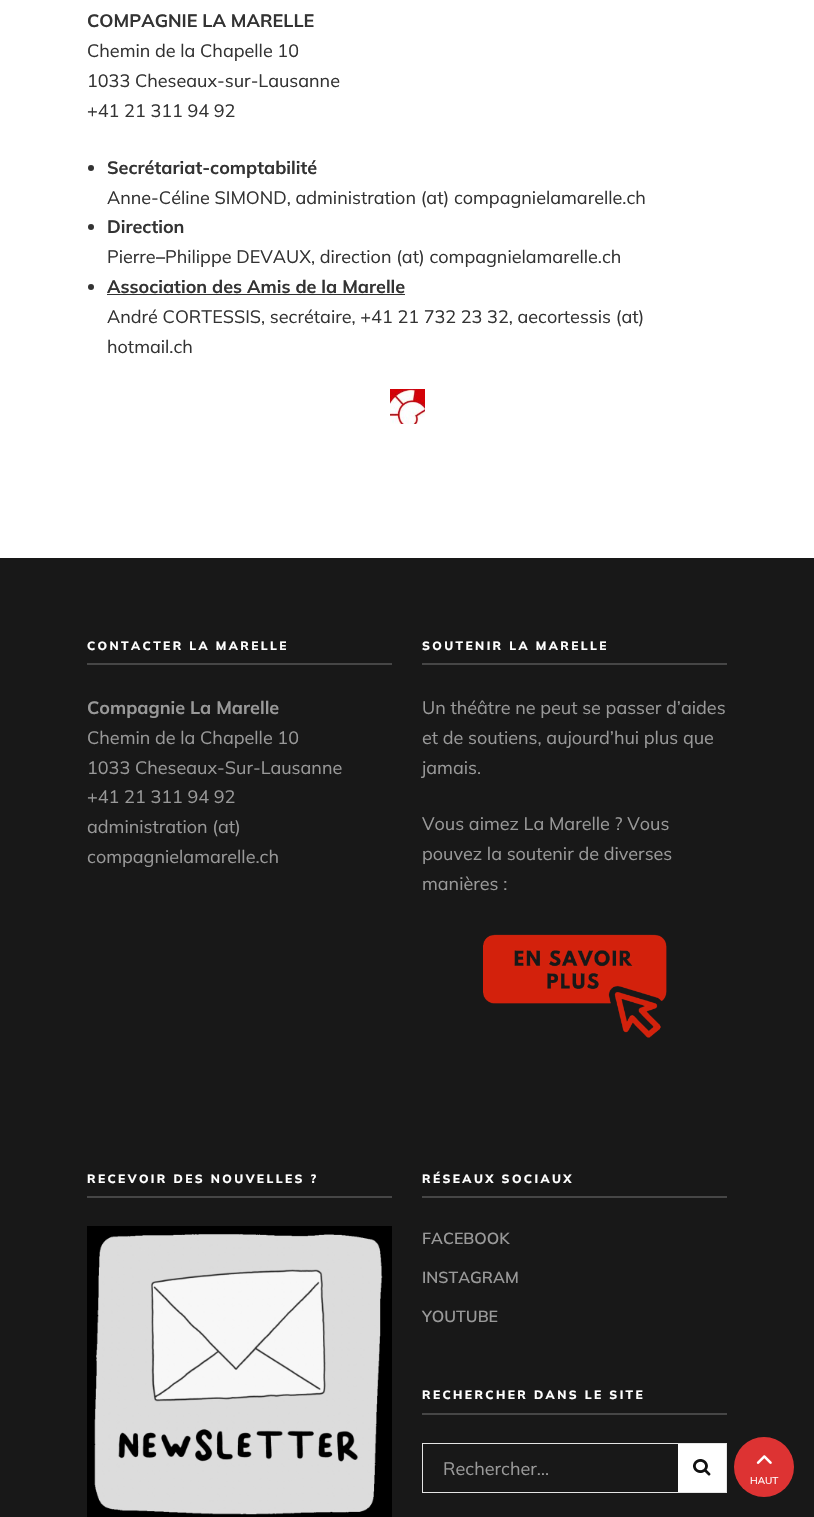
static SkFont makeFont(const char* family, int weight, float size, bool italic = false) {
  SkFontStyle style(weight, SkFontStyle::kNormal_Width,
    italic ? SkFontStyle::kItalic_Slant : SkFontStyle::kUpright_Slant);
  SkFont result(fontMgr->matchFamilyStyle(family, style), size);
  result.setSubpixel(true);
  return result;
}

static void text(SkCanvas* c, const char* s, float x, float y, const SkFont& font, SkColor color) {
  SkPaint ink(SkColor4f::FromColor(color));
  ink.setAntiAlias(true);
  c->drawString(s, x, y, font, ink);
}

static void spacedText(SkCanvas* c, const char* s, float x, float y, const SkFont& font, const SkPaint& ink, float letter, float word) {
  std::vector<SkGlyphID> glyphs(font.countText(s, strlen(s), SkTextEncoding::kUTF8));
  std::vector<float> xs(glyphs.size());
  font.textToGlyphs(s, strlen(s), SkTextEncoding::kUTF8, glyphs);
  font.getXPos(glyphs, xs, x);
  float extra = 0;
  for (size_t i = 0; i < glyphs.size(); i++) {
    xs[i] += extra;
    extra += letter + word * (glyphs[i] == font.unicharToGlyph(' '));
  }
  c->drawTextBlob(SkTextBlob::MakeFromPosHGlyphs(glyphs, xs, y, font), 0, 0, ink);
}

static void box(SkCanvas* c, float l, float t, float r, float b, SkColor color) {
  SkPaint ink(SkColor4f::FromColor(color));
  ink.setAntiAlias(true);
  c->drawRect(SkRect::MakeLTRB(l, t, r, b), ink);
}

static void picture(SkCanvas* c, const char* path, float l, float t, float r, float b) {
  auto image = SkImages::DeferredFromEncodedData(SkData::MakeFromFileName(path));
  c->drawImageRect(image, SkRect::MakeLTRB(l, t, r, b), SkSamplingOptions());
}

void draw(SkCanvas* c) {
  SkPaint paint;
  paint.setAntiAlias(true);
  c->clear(0xffffffff);
  SkFont face1 = makeFont("Mulish", 700, 18);
  text(c, "COMPAGNIE LA MARELLE", 87, 27, face1, 0xff333333);
  SkFont face2 = makeFont("Mulish", 400, 18);
  text(c, "Chemin de la Chapelle 10", 87, 57, face2, 0xff333333);
  text(c, "1033 Cheseaux-sur-Lausanne", 87, 87, face2, 0xff333333);
  text(c, "+41 21 311 94 92", 87, 117, face2, 0xff333333);
  paint.setColor(0xff333333);
  c->drawCircle(91, 168, 3, paint);
  text(c, "Secrétariat-comptabilité", 107, 174, face1, 0xff333333);
  text(c, "Anne-Céline SIMOND, administration (at) compagnielamarelle.ch", 107, 204, face2, 0xff333333);
  c->drawCircle(91, 227, 3, paint);
  text(c, "Direction", 107, 233, face1, 0xff333333);
  text(c, "Pierre", 107, 263, face2, 0xff333333);
  text(c, "–", 156, 263, face1, 0xff333333);
  text(c, "Philippe DEVAUX, direction (at) compagnielamarelle.ch", 165, 263, face2, 0xff333333);
  c->drawCircle(91, 287, 3, paint);
  text(c, "Association des Amis de la Marelle", 107, 293, face1, 0xff333333);
  box(c, 107, 294, 405, 295, 0xff333333);
  text(c, "André CORTESSIS, secrétaire, +41 21 732 23 32, aecortessis (at)", 107, 323, face2, 0xff333333);
  text(c, "hotmail.ch", 107, 353, face2, 0xff333333);
  picture(c, "img_01.png", 390, 389, 425, 424);
  box(c, 0, 558, 814, 1517, 0xff181818);
  SkFont face3 = makeFont("Mulish", 800, 12);
  paint.setColor(0xffffffff);
  spacedText(c, "CONTACTER LA MARELLE", 87, 650, face3, paint, 2.4f, 0);
  box(c, 87, 663, 392, 665, 0xff464646);
  text(c, "Compagnie La Marelle", 87, 714, face1, 0xff999999);
  text(c, "Chemin de la Chapelle 10", 87, 744, face2, 0xff999999);
  text(c, "1033 Cheseaux-Sur-Lausanne", 87, 774, face2, 0xff999999);
  text(c, "+41 21 311 94 92", 87, 803, face2, 0xff999999);
  text(c, "administration (at)", 87, 833, face2, 0xff999999);
  text(c, "compagnielamarelle.ch", 87, 863, face2, 0xff999999);
  spacedText(c, "SOUTENIR LA MARELLE", 422, 650, face3, paint, 2.4f, 0);
  box(c, 422, 663, 727, 665, 0xff464646);
  text(c, "Un théâtre ne peut se passer d’aides", 422, 714, face2, 0xff999999);
  text(c, "et de soutiens, aujourd’hui plus que", 422, 744, face2, 0xff999999);
  text(c, "jamais.", 422, 774, face2, 0xff999999);
  text(c, "Vous aimez La Marelle ? Vous", 422, 830, face2, 0xff999999);
  text(c, "pouvez la soutenir de diverses", 422, 860, face2, 0xff999999);
  text(c, "manières :", 422, 890, face2, 0xff999999);
  picture(c, "img_02.png", 483, 934, 667, 1038);
  spacedText(c, "RECEVOIR DES NOUVELLES ?", 87, 1183, face3, paint, 2.4f, 0);
  box(c, 87, 1196, 392, 1198, 0xff464646);
  picture(c, "img_03.png", 87, 1226, 392, 1517);
  spacedText(c, "RÉSEAUX SOCIAUX", 422, 1183, face3, paint, 2.4f, 0);
  box(c, 422, 1196, 727, 1198, 0xff464646);
  SkFont face4 = makeFont("Mulish", 600, 16);
  text(c, "FACEBOOK", 422, 1244, face4, 0xff999999);
  text(c, "INSTAGRAM", 422, 1283, face4, 0xff999999);
  text(c, "YOUTUBE", 422, 1322, face4, 0xff999999);
  spacedText(c, "RECHERCHER DANS LE SITE", 422, 1399, face3, paint, 2.4f, 0);
  box(c, 422, 1413, 727, 1415, 0xff464646);
  paint.setStyle(SkPaint::kStroke_Style);
  paint.setStrokeWidth(1);
  paint.setColor(0xffe5e5e5);
  c->drawRect(SkRect::MakeLTRB(422.5f, 1443.5f, 726.5f, 1492.5f), paint);
  text(c, "Rechercher…", 443, 1475, face2, 0xff999999);
  box(c, 678, 1444, 726, 1492, 0xffffffff);
  picture(c, "img_04.png", 693, 1459, 711, 1476);
  paint.setStyle(SkPaint::kFill_Style);
  paint.setColor(0xffdd3333);
  c->drawCircle(764, 1467, 30, paint);
  picture(c, "img_05.png", 756, 1455, 772, 1464);
  SkFont face5 = makeFont("Mulish", 400, 10);
  text(c, "HAUT", 750, 1484, face5, 0xffffffff);
}
